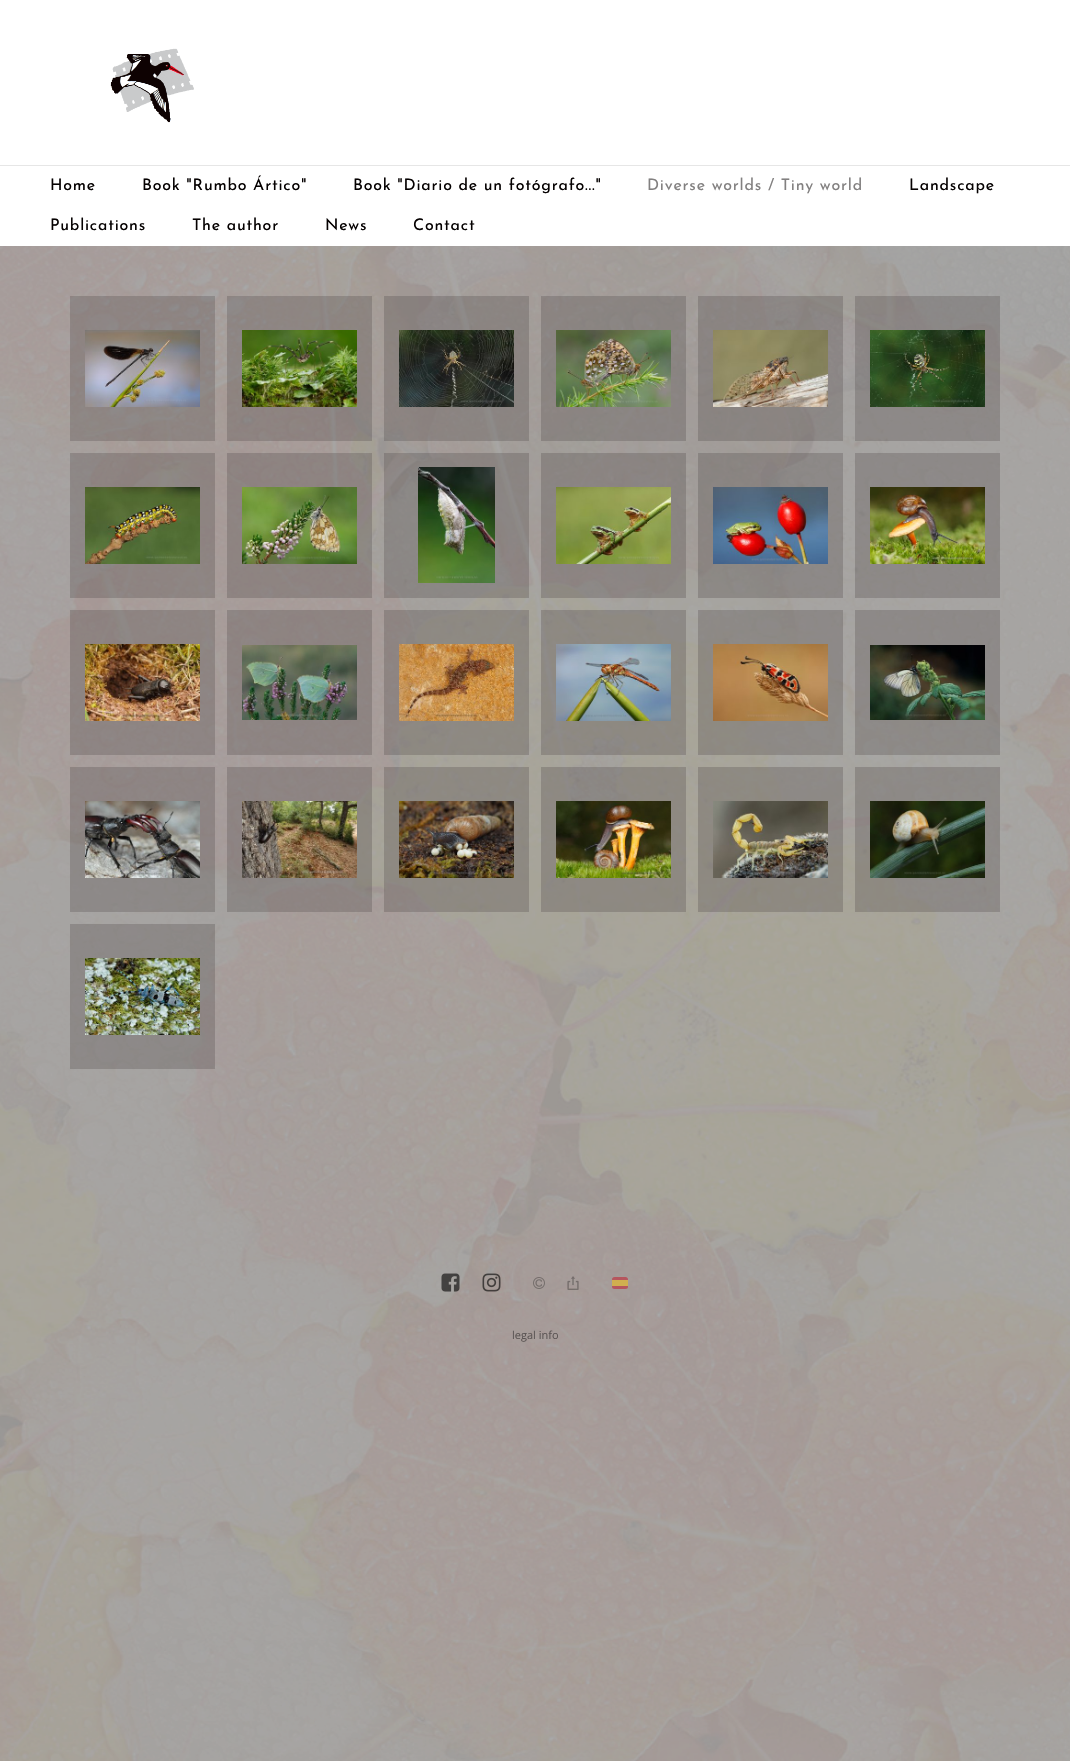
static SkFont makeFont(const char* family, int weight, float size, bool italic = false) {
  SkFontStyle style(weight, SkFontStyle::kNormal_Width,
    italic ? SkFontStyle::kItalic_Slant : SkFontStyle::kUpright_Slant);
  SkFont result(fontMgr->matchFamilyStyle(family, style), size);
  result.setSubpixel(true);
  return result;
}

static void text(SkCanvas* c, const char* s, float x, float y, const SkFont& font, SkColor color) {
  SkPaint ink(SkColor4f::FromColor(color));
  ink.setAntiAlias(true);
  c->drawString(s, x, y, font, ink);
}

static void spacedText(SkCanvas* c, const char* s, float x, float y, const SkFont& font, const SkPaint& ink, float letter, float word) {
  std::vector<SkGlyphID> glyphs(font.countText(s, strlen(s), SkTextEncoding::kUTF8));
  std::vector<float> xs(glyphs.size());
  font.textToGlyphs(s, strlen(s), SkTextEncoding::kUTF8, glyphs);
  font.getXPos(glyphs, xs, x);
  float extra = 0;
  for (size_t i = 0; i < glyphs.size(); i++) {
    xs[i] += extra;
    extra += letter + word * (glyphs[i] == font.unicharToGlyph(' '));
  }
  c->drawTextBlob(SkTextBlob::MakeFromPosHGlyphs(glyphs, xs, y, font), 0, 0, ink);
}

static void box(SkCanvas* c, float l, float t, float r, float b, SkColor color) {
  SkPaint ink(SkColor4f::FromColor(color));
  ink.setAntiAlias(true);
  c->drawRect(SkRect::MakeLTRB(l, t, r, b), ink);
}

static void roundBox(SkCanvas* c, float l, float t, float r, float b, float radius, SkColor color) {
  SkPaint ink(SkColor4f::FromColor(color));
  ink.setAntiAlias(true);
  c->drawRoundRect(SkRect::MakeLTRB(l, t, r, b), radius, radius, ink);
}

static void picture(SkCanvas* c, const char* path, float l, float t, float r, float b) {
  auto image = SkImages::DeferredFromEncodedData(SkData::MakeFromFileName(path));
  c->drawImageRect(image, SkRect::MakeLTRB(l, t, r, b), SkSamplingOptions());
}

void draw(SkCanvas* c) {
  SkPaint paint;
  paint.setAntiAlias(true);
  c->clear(0xffffffff);
  box(c, 0, 165, 1070, 166, 0xffe6e6e6);
  picture(c, "img_01.png", 110, 48, 194, 123);
  SkFont face1 = makeFont("Josefin Sans", 400, 16);
  paint.setColor(0xff050101);
  spacedText(c, "Home", 50, 190, face1, paint, 0.8f, 0);
  spacedText(c, "Book \"Rumbo Ártico\"", 142, 190, face1, paint, 0.8f, 0);
  spacedText(c, "Book \"Diario de un fotógrafo...\"", 353, 190, face1, paint, 0.8f, 0);
  paint.setColor(0xff828080);
  spacedText(c, "Diverse worlds / Tiny world", 647, 190, face1, paint, 0.8f, 0);
  paint.setColor(0xff050101);
  spacedText(c, "Landscape", 909, 190, face1, paint, 0.8f, 0);
  spacedText(c, "Publications", 50, 230, face1, paint, 0.8f, 0);
  spacedText(c, "The author", 192, 230, face1, paint, 0.8f, 0);
  spacedText(c, "News", 325, 230, face1, paint, 0.8f, 0);
  spacedText(c, "Contact", 413, 230, face1, paint, 0.8f, 0);
  picture(c, "img_31.png", 0, 246, 1070, 1761);
  box(c, 70, 296, 215, 441, 0x474a4444);
  picture(c, "img_02.png", 85, 330, 200, 407);
  box(c, 227, 296, 372, 441, 0x474a4444);
  picture(c, "img_03.png", 242, 330, 357, 407);
  box(c, 384, 296, 529, 441, 0x474a4444);
  picture(c, "img_04.png", 399, 330, 514, 407);
  box(c, 541, 296, 686, 441, 0x474a4444);
  picture(c, "img_05.png", 556, 330, 671, 407);
  box(c, 698, 296, 843, 441, 0x474a4444);
  picture(c, "img_06.png", 713, 330, 828, 407);
  box(c, 855, 296, 1000, 441, 0x474a4444);
  picture(c, "img_07.png", 870, 330, 985, 407);
  box(c, 70, 453, 215, 598, 0x474a4444);
  picture(c, "img_08.png", 85, 487, 200, 564);
  box(c, 227, 453, 372, 598, 0x474a4444);
  picture(c, "img_09.png", 242, 487, 357, 564);
  box(c, 384, 453, 529, 598, 0x474a4444);
  picture(c, "img_10.png", 418, 467, 495, 583);
  box(c, 541, 453, 686, 598, 0x474a4444);
  picture(c, "img_11.png", 556, 487, 671, 564);
  box(c, 698, 453, 843, 598, 0x474a4444);
  picture(c, "img_12.png", 713, 487, 828, 564);
  box(c, 855, 453, 1000, 598, 0x474a4444);
  picture(c, "img_13.png", 870, 487, 985, 564);
  box(c, 70, 610, 215, 755, 0x474a4444);
  picture(c, "img_14.png", 85, 644, 200, 721);
  box(c, 227, 610, 372, 755, 0x474a4444);
  picture(c, "img_15.png", 242, 645, 357, 720);
  box(c, 384, 610, 529, 755, 0x474a4444);
  picture(c, "img_16.png", 399, 644, 514, 721);
  box(c, 541, 610, 686, 755, 0x474a4444);
  picture(c, "img_17.png", 556, 644, 671, 721);
  box(c, 698, 610, 843, 755, 0x474a4444);
  picture(c, "img_18.png", 713, 644, 828, 721);
  box(c, 855, 610, 1000, 755, 0x474a4444);
  picture(c, "img_19.png", 870, 645, 985, 720);
  box(c, 70, 767, 215, 912, 0x474a4444);
  picture(c, "img_20.png", 85, 801, 200, 878);
  box(c, 227, 767, 372, 912, 0x474a4444);
  picture(c, "img_21.png", 242, 801, 357, 878);
  box(c, 384, 767, 529, 912, 0x474a4444);
  picture(c, "img_22.png", 399, 801, 514, 878);
  box(c, 541, 767, 686, 912, 0x474a4444);
  picture(c, "img_23.png", 556, 801, 671, 878);
  box(c, 698, 767, 843, 912, 0x474a4444);
  picture(c, "img_24.png", 713, 801, 828, 878);
  box(c, 855, 767, 1000, 912, 0x474a4444);
  picture(c, "img_25.png", 870, 801, 985, 878);
  box(c, 70, 924, 215, 1069, 0x474a4444);
  picture(c, "img_26.png", 85, 958, 200, 1035);
  picture(c, "img_27.png", 441, 1273, 460, 1292);
  picture(c, "img_28.png", 482, 1273, 501, 1292);
  picture(c, "img_29.png", 533, 1277, 545, 1289);
  picture(c, "img_30.png", 567, 1276, 579, 1290);
  roundBox(c, 612, 1277, 628, 1289, 2.5f, 0x7ac60b1e);
  box(c, 612, 1280, 628, 1286, 0xffd0af4f);
  SkFont face2 = makeFont("Open Sans", 400, 11);
  text(c, "legal info", 512, 1339, face2, 0xff5b5554);
}
